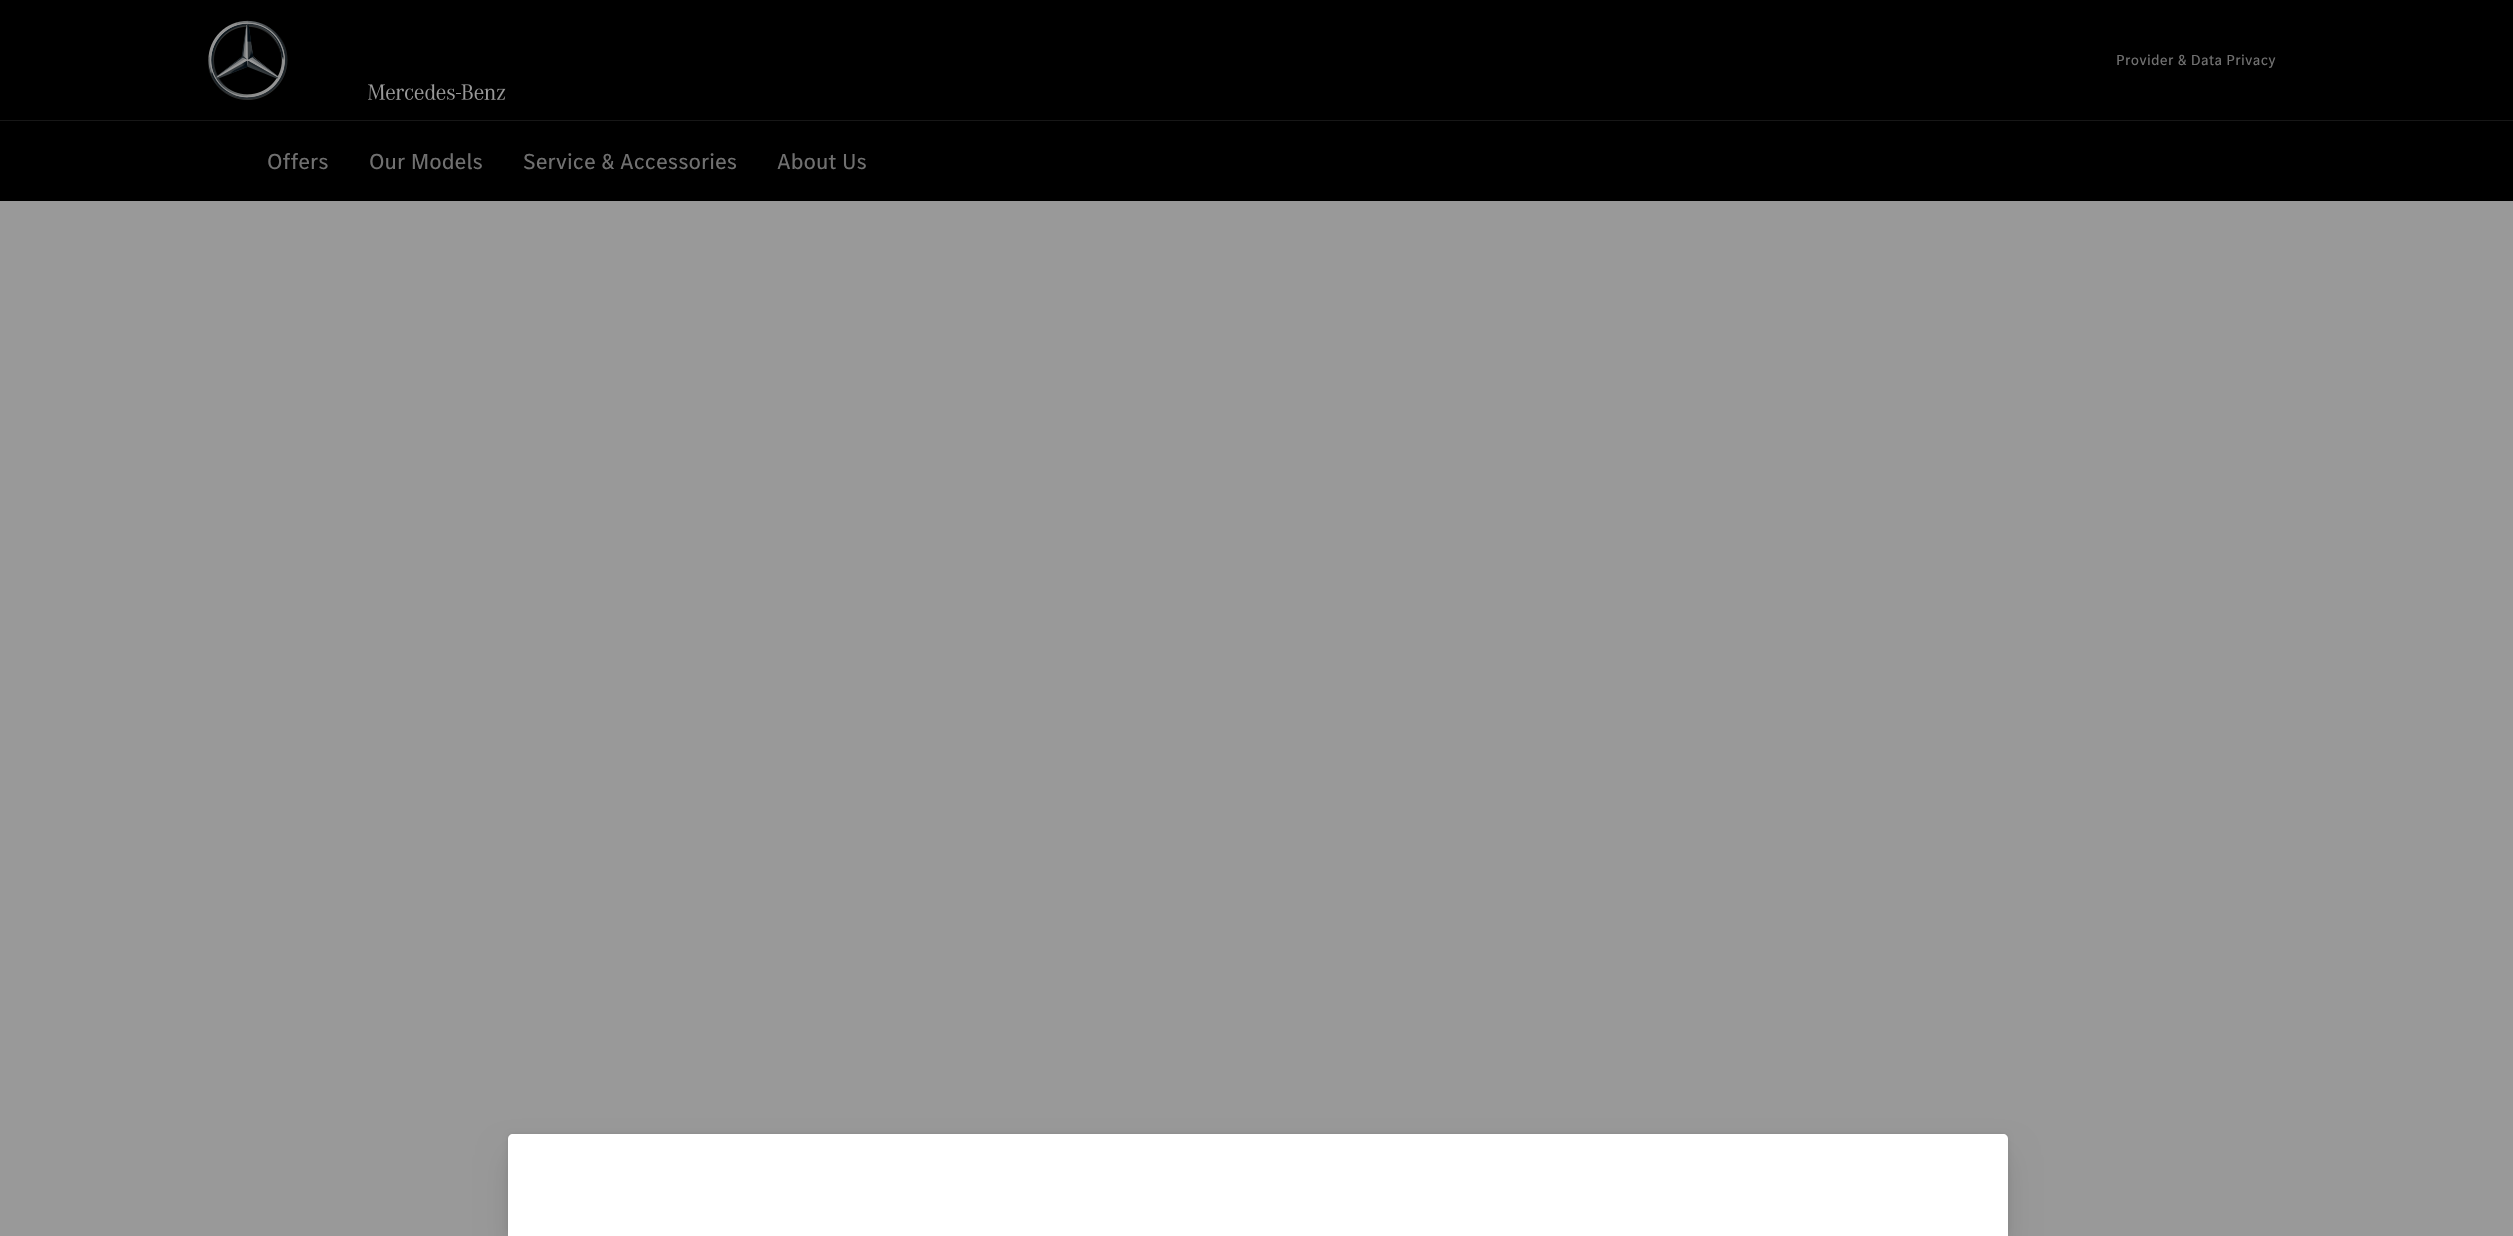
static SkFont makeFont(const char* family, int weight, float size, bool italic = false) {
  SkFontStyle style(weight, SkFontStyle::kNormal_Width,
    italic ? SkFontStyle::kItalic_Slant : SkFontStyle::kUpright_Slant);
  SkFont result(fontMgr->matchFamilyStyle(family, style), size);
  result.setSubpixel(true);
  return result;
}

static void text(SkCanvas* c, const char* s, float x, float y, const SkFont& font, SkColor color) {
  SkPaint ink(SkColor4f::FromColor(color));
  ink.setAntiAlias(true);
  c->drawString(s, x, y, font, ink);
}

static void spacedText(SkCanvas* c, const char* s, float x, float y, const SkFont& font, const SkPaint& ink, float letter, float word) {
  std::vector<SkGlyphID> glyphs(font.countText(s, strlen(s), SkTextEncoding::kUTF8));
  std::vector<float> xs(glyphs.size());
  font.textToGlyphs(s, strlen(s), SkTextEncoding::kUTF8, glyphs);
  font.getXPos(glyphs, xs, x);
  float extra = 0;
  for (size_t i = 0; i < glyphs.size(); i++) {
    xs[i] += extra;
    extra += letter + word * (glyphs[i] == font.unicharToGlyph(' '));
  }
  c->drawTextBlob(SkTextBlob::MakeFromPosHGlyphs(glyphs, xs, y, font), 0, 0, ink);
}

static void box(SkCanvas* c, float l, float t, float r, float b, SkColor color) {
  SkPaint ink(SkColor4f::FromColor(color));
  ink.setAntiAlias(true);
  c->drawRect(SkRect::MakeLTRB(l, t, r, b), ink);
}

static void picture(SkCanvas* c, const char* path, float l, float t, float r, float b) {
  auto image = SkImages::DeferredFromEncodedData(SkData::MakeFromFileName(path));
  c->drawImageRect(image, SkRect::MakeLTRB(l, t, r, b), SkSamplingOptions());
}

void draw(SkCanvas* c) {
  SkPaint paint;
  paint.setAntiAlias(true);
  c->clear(0xff999999);
  box(c, 0, 0, 2513, 201, 0xff000000);
  picture(c, "img_01.png", 208, 20, 288, 100);
  picture(c, "img_02.png", 368, 84, 506, 100);
  SkFont face1 = makeFont("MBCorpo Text", 400, 15);
  paint.setColor(0xff707070);
  spacedText(c, "Provider & Data Privacy", 2116, 65, face1, paint, 0.25f, 0);
  box(c, 0, 120, 2513, 121, 0xff171717);
  SkFont face2 = makeFont("MBCorpo Text", 400, 22.5f);
  text(c, "Offers", 267, 169, face2, 0xff707070);
  text(c, "Our Models", 369, 169, face2, 0xff707070);
  text(c, "Service & Accessories", 523, 169, face2, 0xff707070);
  text(c, "About Us", 777, 169, face2, 0xff707070);
  paint.setColor(0x1a000000);
  paint.setMaskFilter(SkMaskFilter::MakeBlur(kNormal_SkBlurStyle, 15));
  c->drawRoundRect(SkRect::MakeLTRB(508, 1154, 2008, 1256), 5, 5, paint);
  paint.setMaskFilter(nullptr);
  paint.setMaskFilter(SkMaskFilter::MakeBlur(kNormal_SkBlurStyle, 2.5f));
  c->drawRoundRect(SkRect::MakeLTRB(508, 1134, 2008, 1236), 5, 5, paint);
  paint.setMaskFilter(nullptr);
  paint.setColor(0xffffffff);
  c->drawPath(SkPathBuilder().moveTo(513, 1134).lineTo(2003, 1134).cubicTo(2006, 1134, 2008, 1136, 2008, 1139).lineTo(2008, 1236).lineTo(508, 1236).lineTo(508, 1139).cubicTo(508, 1136, 510, 1134, 513, 1134).close().detach(), paint);
}
